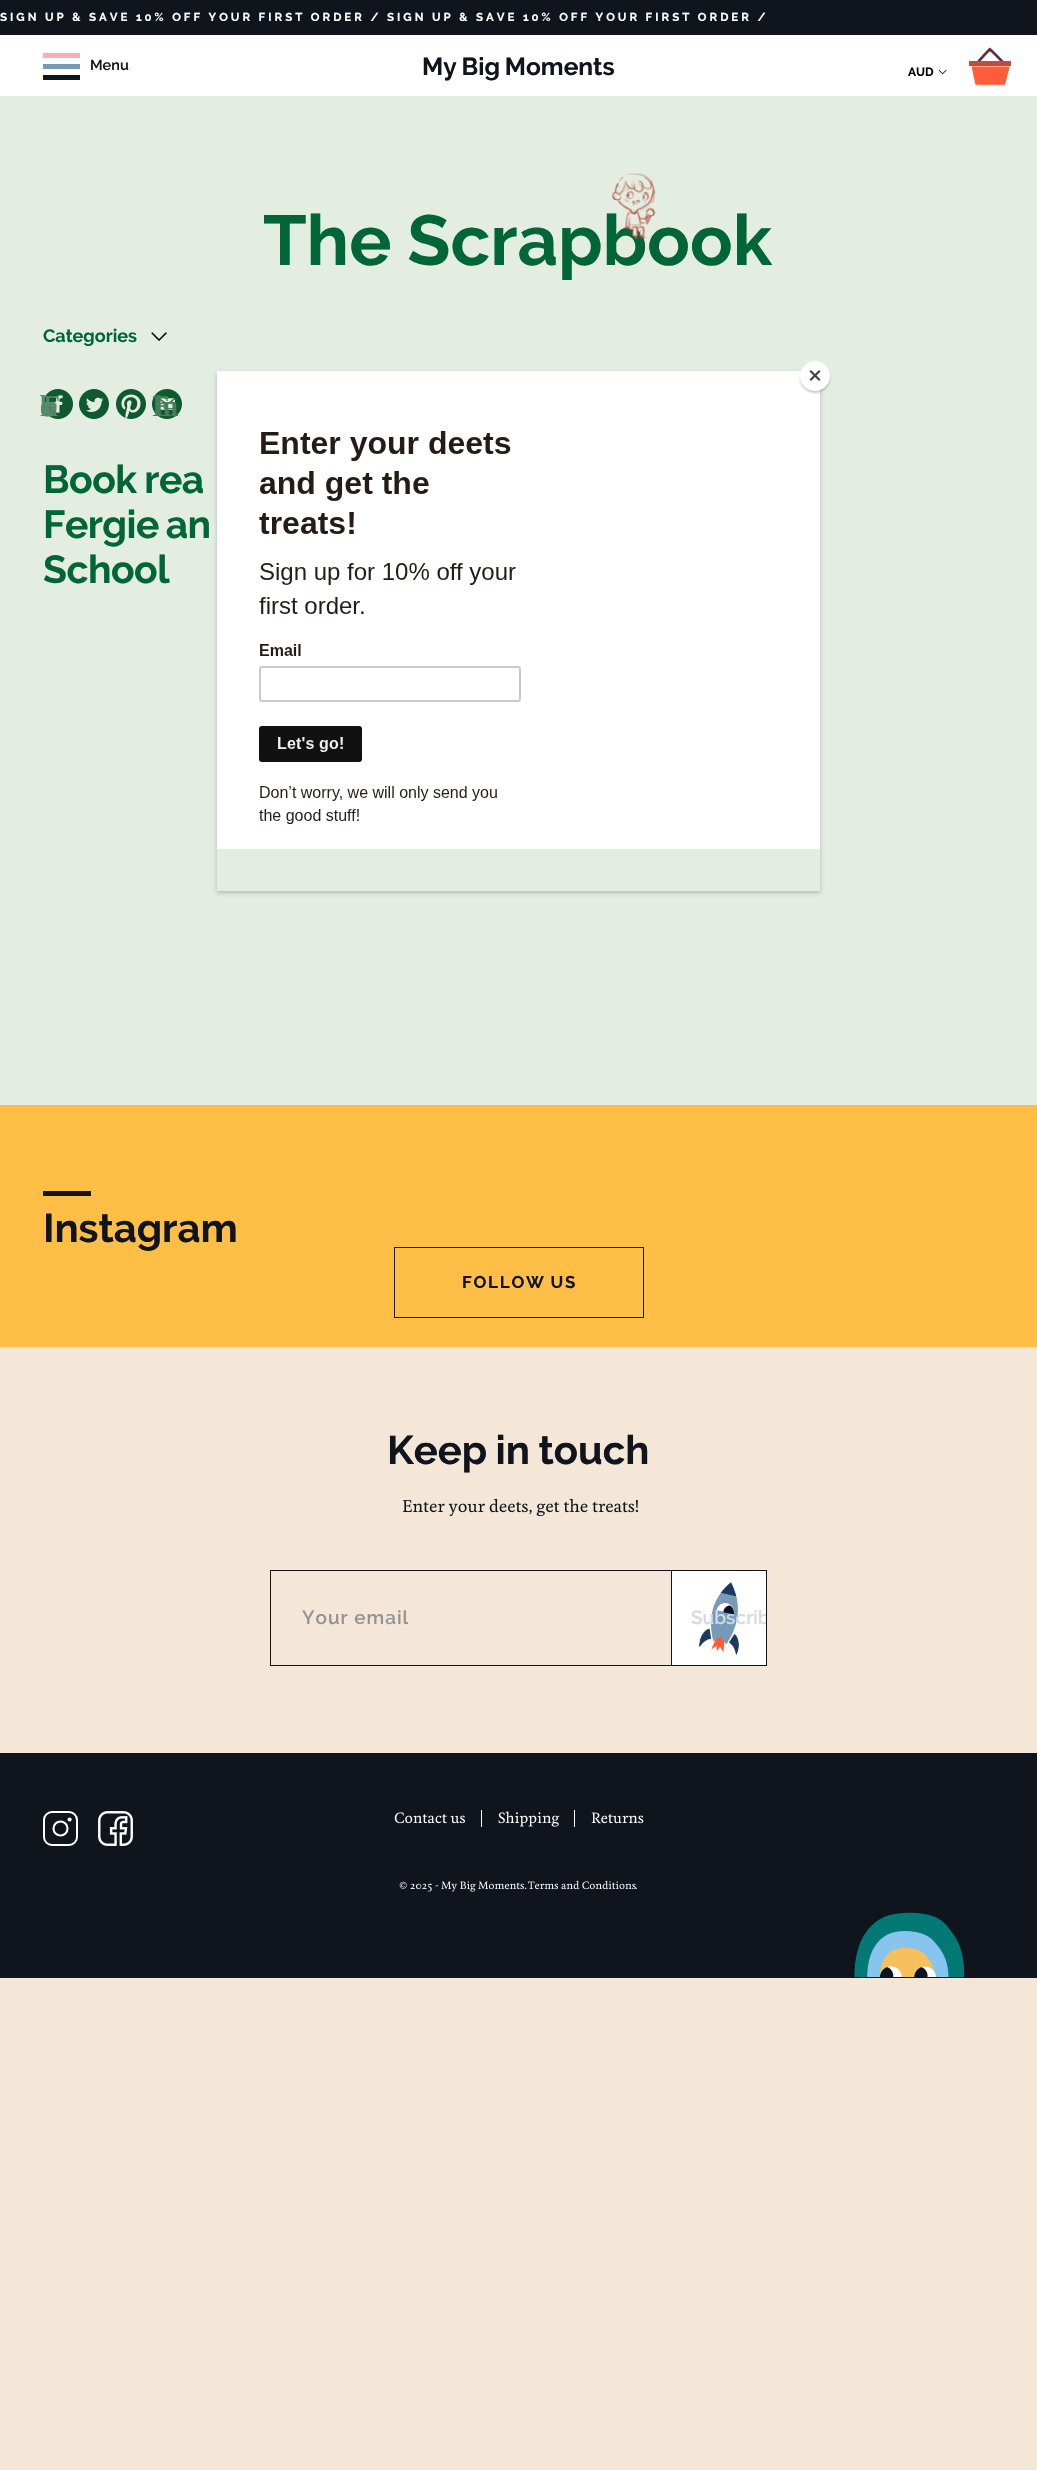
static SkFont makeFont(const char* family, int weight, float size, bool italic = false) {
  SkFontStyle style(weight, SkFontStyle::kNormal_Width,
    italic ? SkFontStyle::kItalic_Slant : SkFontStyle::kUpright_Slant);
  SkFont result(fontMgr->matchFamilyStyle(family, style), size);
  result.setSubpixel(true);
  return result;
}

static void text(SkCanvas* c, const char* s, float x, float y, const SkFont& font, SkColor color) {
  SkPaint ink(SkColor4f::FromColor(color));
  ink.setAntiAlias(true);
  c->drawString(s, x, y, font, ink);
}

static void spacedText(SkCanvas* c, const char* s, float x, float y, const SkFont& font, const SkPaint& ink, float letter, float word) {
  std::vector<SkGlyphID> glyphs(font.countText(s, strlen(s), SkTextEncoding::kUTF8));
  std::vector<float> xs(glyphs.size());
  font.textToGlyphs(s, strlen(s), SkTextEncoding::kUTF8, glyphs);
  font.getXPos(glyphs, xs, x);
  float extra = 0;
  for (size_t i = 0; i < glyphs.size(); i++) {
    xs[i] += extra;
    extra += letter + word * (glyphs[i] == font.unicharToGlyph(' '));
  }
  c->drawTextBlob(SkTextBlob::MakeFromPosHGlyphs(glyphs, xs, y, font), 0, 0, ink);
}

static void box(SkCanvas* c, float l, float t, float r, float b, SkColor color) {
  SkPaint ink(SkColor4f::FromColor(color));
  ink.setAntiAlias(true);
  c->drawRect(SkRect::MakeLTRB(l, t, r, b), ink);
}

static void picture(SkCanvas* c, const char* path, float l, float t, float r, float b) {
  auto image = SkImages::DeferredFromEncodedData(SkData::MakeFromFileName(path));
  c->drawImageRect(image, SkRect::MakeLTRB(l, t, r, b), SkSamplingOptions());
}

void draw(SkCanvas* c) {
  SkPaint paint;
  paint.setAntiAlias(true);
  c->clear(0xfff4e7d8);
  box(c, 0, 35, 1037, 96, 0xffffffff);
  box(c, 0, 0, 1037, 35, 0xff10141d);
  SkFont face1 = makeFont("Raleway", 700, 11.5f);
  paint.setColor(0xffffffff);
  spacedText(c, "SIGN UP & SAVE 10% OFF YOUR FIRST ORDER /", 0, 21, face1, paint, 3, -0.25f);
  spacedText(c, "SIGN UP & SAVE 10% OFF YOUR FIRST ORDER /", 387, 21, face1, paint, 3, -0.25f);
  box(c, 43, 64, 80, 69, 0xff779ab8);
  box(c, 43, 53, 80, 58, 0xffffaab7);
  box(c, 43, 75, 80, 80, 0xff10141d);
  SkFont face2 = makeFont("Raleway", 600, 14.5f);
  text(c, "Menu", 90, 70, face2, 0xff10141d);
  SkFont face3 = makeFont("Raleway", 700, 24.5f);
  paint.setColor(0xff10141d);
  spacedText(c, "My Big Moments", 422, 75, face3, paint, 0, -1);
  picture(c, "img_01.png", 969, 47, 1011, 85);
  picture(c, "img_02.png", 938, 69, 947, 74);
  SkFont face4 = makeFont("Raleway", 700, 12);
  text(c, "AUD", 908, 76, face4, 0xff000000);
  box(c, 0, 96, 1037, 1105, 0xffe3ede2);
  SkFont face5 = makeFont("Raleway", 700, 70.5f);
  paint.setColor(0xff006638);
  spacedText(c, "The Scrapbook", 263, 265, face5, paint, 0, -1);
  picture(c, "img_03.png", 611, 173, 656, 240);
  SkFont face6 = makeFont("Raleway", 700, 18);
  text(c, "Categories", 43, 342, face6, 0xff006638);
  picture(c, "img_04.png", 151, 332, 167, 341);
  picture(c, "img_05.png", 43, 389, 73, 419);
  SkFont face7 = makeFont("Liberation Serif", 400, 30);
  paint.setColor(0xff578a6a);
  spacedText(c, "Facebook", 43, 416, face7, paint, -15, 0);
  picture(c, "img_06.png", 79, 389, 109, 419);
  picture(c, "img_07.png", 116, 389, 146, 419);
  picture(c, "img_08.png", 152, 389, 182, 419);
  paint.setColor(0xff457d5b);
  spacedText(c, "Email", 152, 416, face7, paint, -15, 0);
  SkFont face8 = makeFont("Raleway", 700, 39);
  paint.setColor(0xff006638);
  spacedText(c, "Book rea", 43, 493, face8, paint, -0.5f, -1);
  spacedText(c, "Fergie an", 43, 538, face8, paint, -0.5f, -2);
  spacedText(c, "School", 43, 583, face8, paint, -0.5f, 0);
  box(c, 0, 1105, 1037, 1347, 0xffffbe46);
  box(c, 43, 1191, 91, 1196, 0xff10141d);
  SkFont face9 = makeFont("Raleway", 700, 40);
  text(c, "Instagram", 43, 1242, face9, 0xff10141d);
  paint.setStyle(SkPaint::kStroke_Style);
  paint.setStrokeWidth(1);
  paint.setColor(0xff10141d);
  c->drawRect(SkRect::MakeLTRB(394.5f, 1247.5f, 643.5f, 1317.5f), paint);
  SkFont face10 = makeFont("Raleway", 700, 17);
  paint.setStyle(SkPaint::kFill_Style);
  spacedText(c, "FOLLOW US", 462, 1288, face10, paint, 1.75f, -1);
  spacedText(c, "Keep in touch", 387, 1464, face9, paint, 0, -1);
  picture(c, "img_09.png", 402, 1498, 639, 1517);
  paint.setStyle(SkPaint::kStroke_Style);
  c->drawRect(SkRect::MakeLTRB(270.5f, 1570.5f, 671.5f, 1665.5f), paint);
  SkFont face11 = makeFont("Raleway", 600, 19);
  paint.setStyle(SkPaint::kFill_Style);
  paint.setColor(0xff939396);
  spacedText(c, "Your email", 302, 1624, face11, paint, 1, 0);
  box(c, 672, 1571, 766, 1665, 0xffffffff);
  picture(c, "img_10.png", 699, 1582, 739, 1655);
  box(c, 672, 1570, 767, 1571, 0xff10141d);
  box(c, 766, 1570, 767, 1666, 0xff10141d);
  box(c, 672, 1665, 767, 1666, 0xff10141d);
  c->save();
  c->clipRect(SkRect::MakeLTRB(672, 1571, 766, 1665));
  text(c, "Subscrib", 691, 1624, face11, 0xffcfdbe5);
  c->restore();
  box(c, 0, 1753, 1037, 1978, 0xff10141d);
  paint.setStyle(SkPaint::kStroke_Style);
  paint.setStrokeWidth(2);
  paint.setColor(0xffffffff);
  c->drawRoundRect(SkRect::MakeLTRB(44, 1812, 77, 1845), 8, 8, paint);
  paint.setStrokeWidth(2.1f);
  c->drawCircle(60.5f, 1828.5f, 7, paint);
  paint.setStyle(SkPaint::kFill_Style);
  c->drawCircle(69.6f, 1819.5f, 2.1f, paint);
  picture(c, "img_11.png", 98, 1811, 133, 1846);
  picture(c, "img_12.png", 394, 1812, 465, 1824);
  box(c, 481, 1810, 482, 1827, 0xffffffff);
  picture(c, "img_13.png", 498, 1811, 560, 1827);
  box(c, 574, 1810, 575, 1827, 0xffffffff);
  picture(c, "img_14.png", 591, 1812, 644, 1824);
  picture(c, "img_15.png", 399, 1881, 527, 1892);
  picture(c, "img_16.png", 528, 1880, 636, 1890);
  picture(c, "img_17.png", 635, 1887, 637, 1889);
  picture(c, "img_18.png", 854, 1912, 964, 1977);
  c->save();
  c->clipPath(SkPathBuilder(SkPathFillType::kEvenOdd).moveTo(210, 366).lineTo(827, 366).lineTo(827, 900).lineTo(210, 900).close().moveTo(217, 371).lineTo(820, 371).lineTo(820, 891).lineTo(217, 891).close().detach(), true);
  paint.setColor(0x33000000);
  paint.setMaskFilter(SkMaskFilter::MakeBlur(kNormal_SkBlurStyle, 2));
  c->drawRect(SkRect::MakeLTRB(217, 373, 820, 893), paint);
  paint.setMaskFilter(nullptr);
  c->restore();
  picture(c, "img_19.png", 217, 371, 820, 849);
  paint.setMaskFilter(SkMaskFilter::MakeBlur(kNormal_SkBlurStyle, 1));
  c->drawRoundRect(SkRect::MakeLTRB(800, 363, 830, 393), 15, 15, paint);
  paint.setMaskFilter(nullptr);
  paint.setColor(0xffffffff);
  c->drawCircle(815, 376, 15, paint);
  paint.setColor(0xff414141);
  c->drawPath(SkPathBuilder().moveTo(819, 370).lineTo(820.5f, 371.5f).lineTo(811, 381).lineTo(809.5f, 379.5f).close().detach(), paint);
  c->drawPath(SkPathBuilder().moveTo(809.5f, 371.5f).lineTo(811, 370).lineTo(820.5f, 379.5f).lineTo(819, 381).close().detach(), paint);
}
